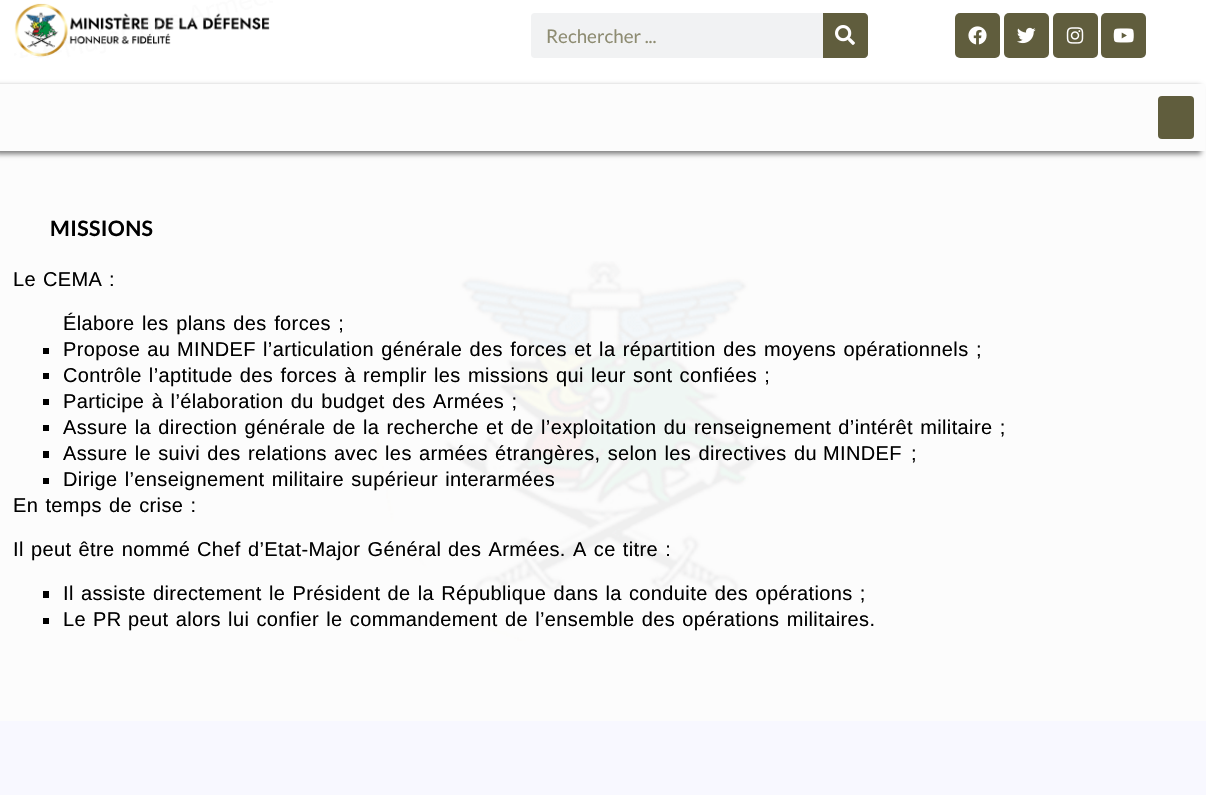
static SkFont makeFont(const char* family, int weight, float size, bool italic = false) {
  SkFontStyle style(weight, SkFontStyle::kNormal_Width,
    italic ? SkFontStyle::kItalic_Slant : SkFontStyle::kUpright_Slant);
  SkFont result(fontMgr->matchFamilyStyle(family, style), size);
  result.setSubpixel(true);
  return result;
}

static void text(SkCanvas* c, const char* s, float x, float y, const SkFont& font, SkColor color) {
  SkPaint ink(SkColor4f::FromColor(color));
  ink.setAntiAlias(true);
  c->drawString(s, x, y, font, ink);
}

static void spacedText(SkCanvas* c, const char* s, float x, float y, const SkFont& font, const SkPaint& ink, float letter, float word) {
  std::vector<SkGlyphID> glyphs(font.countText(s, strlen(s), SkTextEncoding::kUTF8));
  std::vector<float> xs(glyphs.size());
  font.textToGlyphs(s, strlen(s), SkTextEncoding::kUTF8, glyphs);
  font.getXPos(glyphs, xs, x);
  float extra = 0;
  for (size_t i = 0; i < glyphs.size(); i++) {
    xs[i] += extra;
    extra += letter + word * (glyphs[i] == font.unicharToGlyph(' '));
  }
  c->drawTextBlob(SkTextBlob::MakeFromPosHGlyphs(glyphs, xs, y, font), 0, 0, ink);
}

static void box(SkCanvas* c, float l, float t, float r, float b, SkColor color) {
  SkPaint ink(SkColor4f::FromColor(color));
  ink.setAntiAlias(true);
  c->drawRect(SkRect::MakeLTRB(l, t, r, b), ink);
}

static void roundBox(SkCanvas* c, float l, float t, float r, float b, float radius, SkColor color) {
  SkPaint ink(SkColor4f::FromColor(color));
  ink.setAntiAlias(true);
  c->drawRoundRect(SkRect::MakeLTRB(l, t, r, b), radius, radius, ink);
}

static void picture(SkCanvas* c, const char* path, float l, float t, float r, float b) {
  auto image = SkImages::DeferredFromEncodedData(SkData::MakeFromFileName(path));
  c->drawImageRect(image, SkRect::MakeLTRB(l, t, r, b), SkSamplingOptions());
}

void draw(SkCanvas* c) {
  SkPaint paint;
  paint.setAntiAlias(true);
  c->clear(0xffffffff);
  picture(c, "img_01.png", 14, 0, 273, 58);
  roundBox(c, 531, 13, 868, 58, 4, 0xfff1f2f3);
  SkFont face1 = makeFont("Lato", 400, 18.75f);
  text(c, "Rechercher ...", 546, 43, face1, 0xff8e8c72);
  paint.setColor(0xff605d3d);
  c->drawPath(SkPathBuilder().moveTo(823, 13).lineTo(864, 13).cubicTo(866, 13, 868, 15, 868, 17).lineTo(868, 54).cubicTo(868, 56, 866, 58, 864, 58).lineTo(823, 58).close().detach(), paint);
  picture(c, "img_02.png", 835, 25, 855, 45);
  roundBox(c, 955, 13, 1000, 58, 5, 0xff605d3d);
  picture(c, "img_03.png", 968, 26, 987, 45);
  roundBox(c, 1004, 13, 1049, 58, 5, 0xff605d3d);
  picture(c, "img_04.png", 1017, 27, 1036, 44);
  roundBox(c, 1053, 13, 1098, 58, 5, 0xff605d3d);
  picture(c, "img_05.png", 1066, 27, 1084, 44);
  roundBox(c, 1101, 13, 1146, 58, 5, 0xff605d3d);
  picture(c, "img_06.png", 1113, 28, 1134, 43);
  box(c, 0, 151, 1206, 721, 0xfffcfcfc);
  paint.setColor(0x80000000);
  paint.setMaskFilter(SkMaskFilter::MakeBlur(kNormal_SkBlurStyle, 2.5f));
  c->drawRect(SkRect::MakeLTRB(-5, 86, 1201, 154), paint);
  paint.setMaskFilter(nullptr);
  box(c, 0, 84, 1205, 151, 0xfffcfcfc);
  roundBox(c, 1158, 96, 1194, 139, 4, 0xff605d3d);
  picture(c, "img_07.png", 377, 261, 770, 641);
  SkFont face2 = makeFont("Lato", 700, 21.25f);
  paint.setColor(0xff000000);
  spacedText(c, "MISSIONS", 50, 236, face2, paint, 0.38f, 0);
  SkFont face3 = makeFont("Liberation Sans", 400, 20);
  spacedText(c, "Le", 13, 286, face3, paint, 0.38f, 0);
  spacedText(c, "CEMA", 43, 286, face3, paint, 0.38f, 0);
  spacedText(c, ":", 109, 286, face3, paint, 0.38f, 0);
  spacedText(c, "Élabore les plans des forces ;", 63, 330, face3, paint, 0.38f, 1.5f);
  box(c, 43, 348, 49, 354, 0xff000000);
  spacedText(c, "Propose au", 63, 356, face3, paint, 0.38f, 1.25f);
  spacedText(c, "MINDEF", 177, 356, face3, paint, 0.38f, 0);
  spacedText(c, "l’articulation générale des forces et la répartition des moyens opérationnels ;", 263, 356, face3, paint, 0.38f, 1.4f);
  box(c, 43, 373, 49, 379, 0xff000000);
  spacedText(c, "Contrôle l’aptitude des forces à remplir les missions qui leur sont confiées ;", 63, 382, face3, paint, 0.38f, 1.25f);
  box(c, 43, 399, 49, 405, 0xff000000);
  spacedText(c, "Participe à l’élaboration du budget des Armées ;", 63, 408, face3, paint, 0.38f, 1.5f);
  box(c, 43, 425, 49, 431, 0xff000000);
  spacedText(c, "Assure la direction générale de la recherche et de l’exploitation du renseignement d’intérêt militaire ;", 63, 434, face3, paint, 0.38f, 1.3f);
  box(c, 43, 451, 49, 458, 0xff000000);
  spacedText(c, "Assure le suivi des relations avec les armées étrangères, selon les directives du", 63, 460, face3, paint, 0.38f, 1.25f);
  spacedText(c, "MINDEF", 823, 460, face3, paint, 0.38f, 0);
  spacedText(c, ";", 911, 460, face3, paint, 0.38f, 0);
  box(c, 43, 478, 49, 484, 0xff000000);
  spacedText(c, "Dirige l’enseignement militaire supérieur interarmées", 63, 486, face3, paint, 0.38f, 1.25f);
  spacedText(c, "En temps de crise :", 13, 512, face3, paint, 0.38f, 1.25f);
  spacedText(c, "Il peut être nommé", 13, 556, face3, paint, 0.38f, 1.25f);
  spacedText(c, "Chef d’Etat-Major Général", 197, 556, face3, paint, 0.38f, 1.25f);
  spacedText(c, "des Armées. A ce titre :", 448, 556, face3, paint, 0.38f, 1.25f);
  box(c, 43, 591, 49, 598, 0xff000000);
  spacedText(c, "Il assiste directement le Président de la République dans la conduite des opérations ;", 63, 600, face3, paint, 0.38f, 1.25f);
  box(c, 43, 618, 49, 624, 0xff000000);
  spacedText(c, "Le", 63, 626, face3, paint, 0.38f, 0);
  spacedText(c, "PR", 93, 626, face3, paint, 0.38f, 0);
  spacedText(c, "peut alors lui confier le commandement de l’ensemble des opérations militaires.", 128, 626, face3, paint, 0.38f, 1.25f);
  box(c, 0, 721, 1206, 795, 0xfff8f8ff);
}
